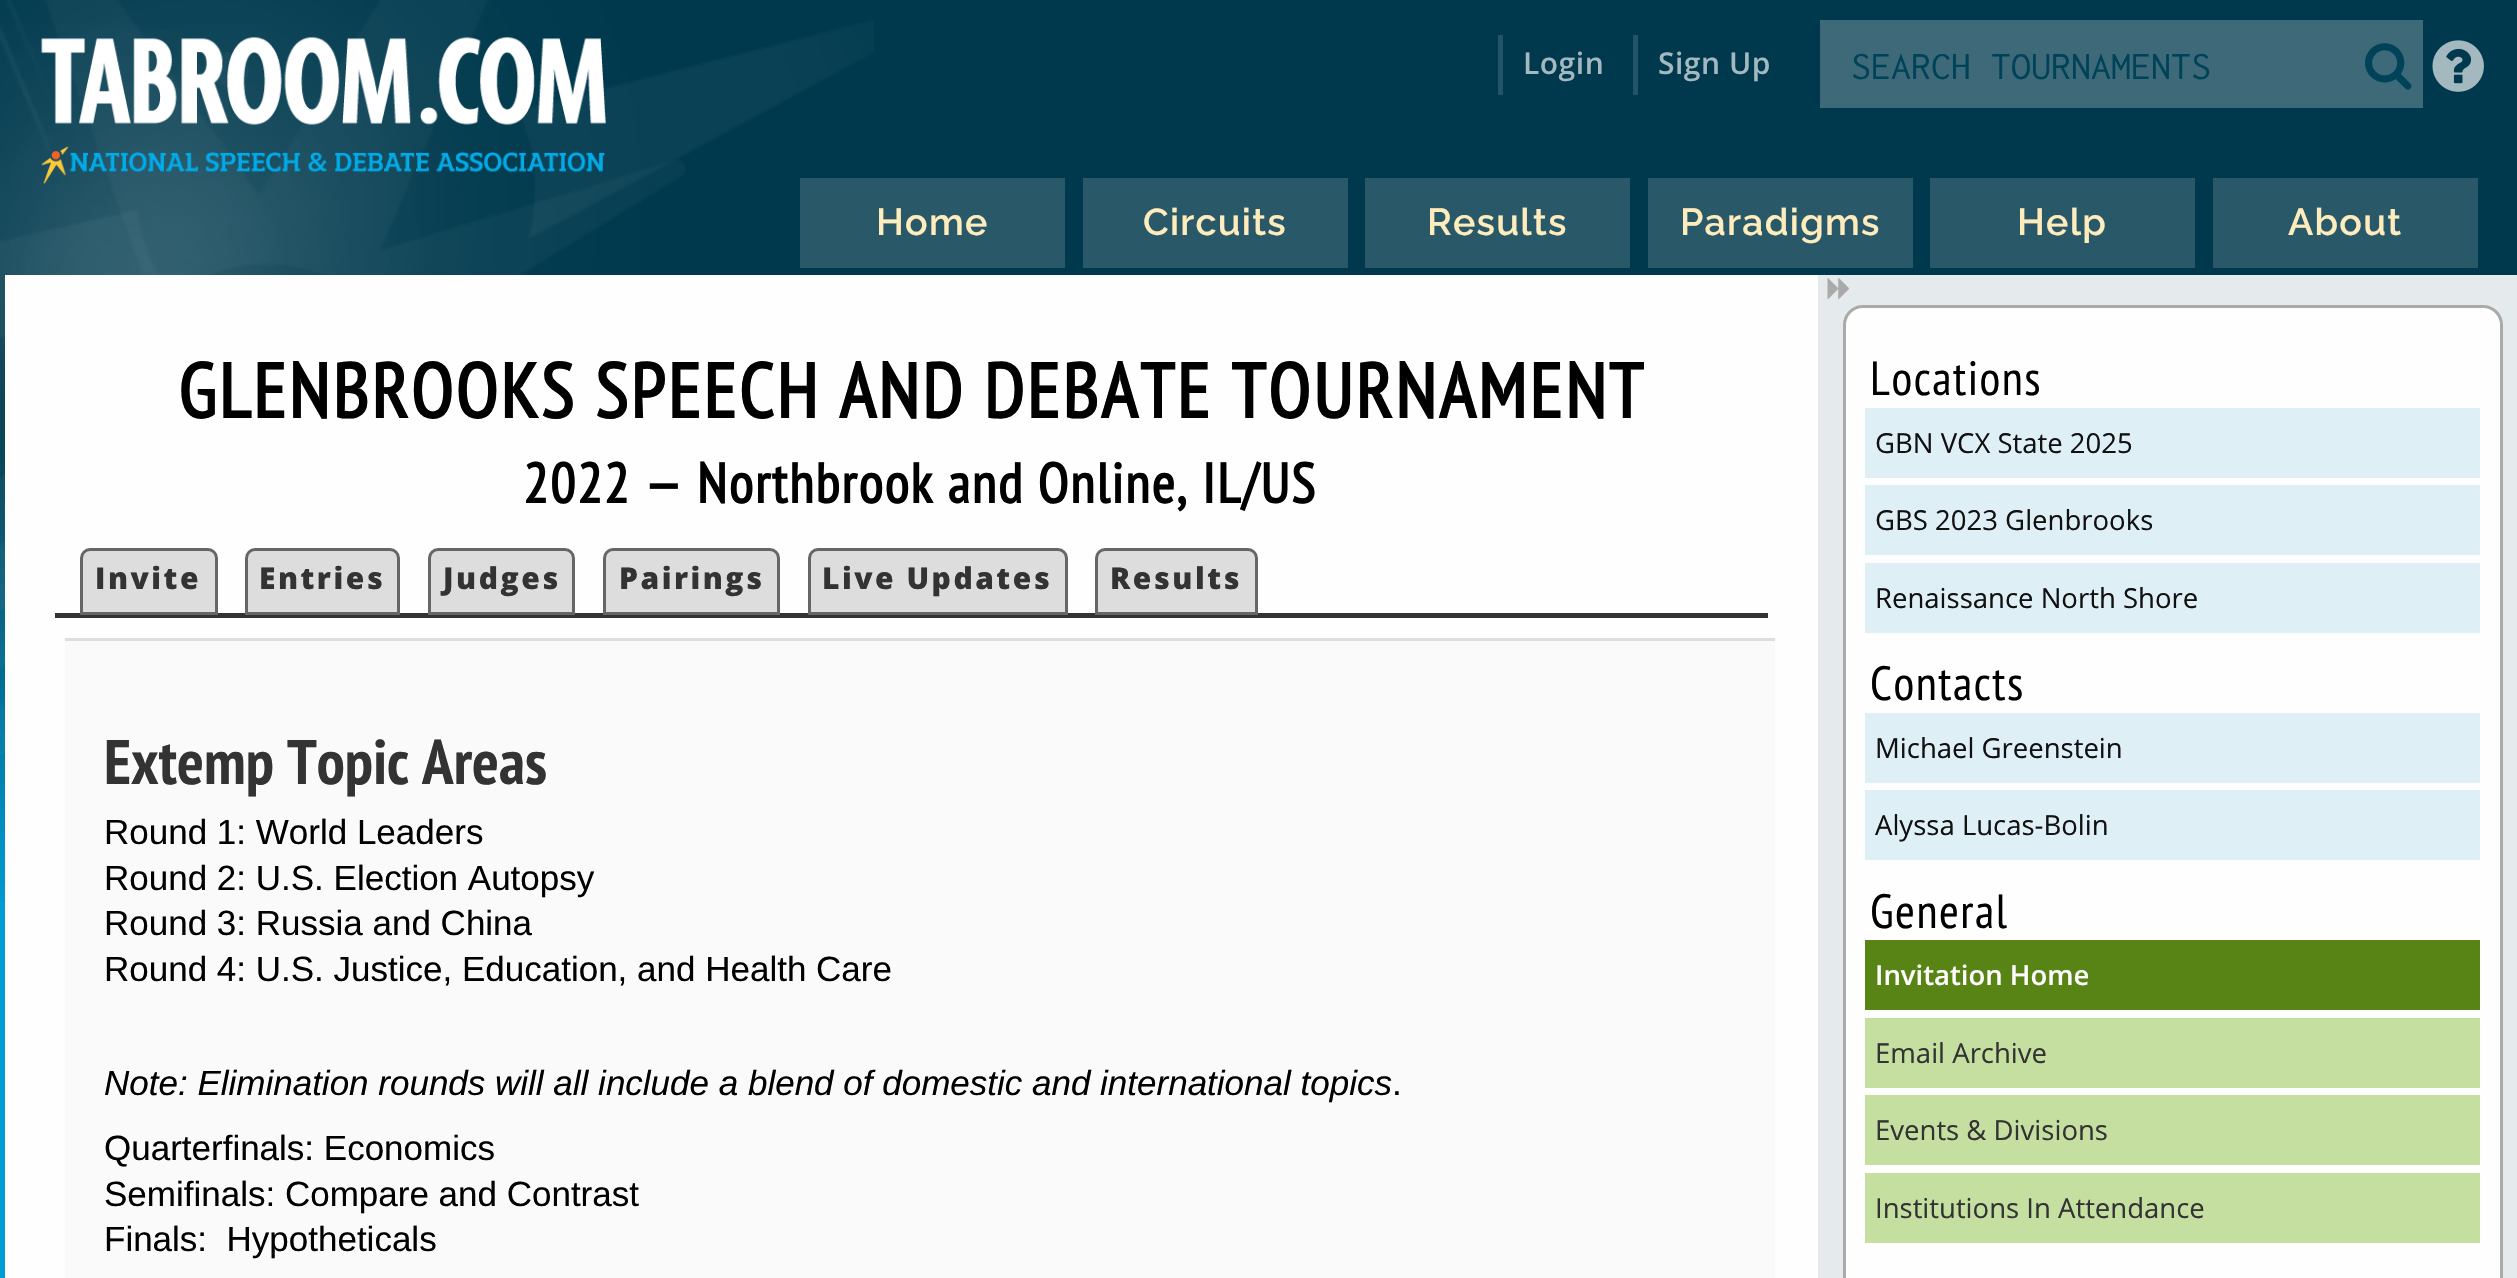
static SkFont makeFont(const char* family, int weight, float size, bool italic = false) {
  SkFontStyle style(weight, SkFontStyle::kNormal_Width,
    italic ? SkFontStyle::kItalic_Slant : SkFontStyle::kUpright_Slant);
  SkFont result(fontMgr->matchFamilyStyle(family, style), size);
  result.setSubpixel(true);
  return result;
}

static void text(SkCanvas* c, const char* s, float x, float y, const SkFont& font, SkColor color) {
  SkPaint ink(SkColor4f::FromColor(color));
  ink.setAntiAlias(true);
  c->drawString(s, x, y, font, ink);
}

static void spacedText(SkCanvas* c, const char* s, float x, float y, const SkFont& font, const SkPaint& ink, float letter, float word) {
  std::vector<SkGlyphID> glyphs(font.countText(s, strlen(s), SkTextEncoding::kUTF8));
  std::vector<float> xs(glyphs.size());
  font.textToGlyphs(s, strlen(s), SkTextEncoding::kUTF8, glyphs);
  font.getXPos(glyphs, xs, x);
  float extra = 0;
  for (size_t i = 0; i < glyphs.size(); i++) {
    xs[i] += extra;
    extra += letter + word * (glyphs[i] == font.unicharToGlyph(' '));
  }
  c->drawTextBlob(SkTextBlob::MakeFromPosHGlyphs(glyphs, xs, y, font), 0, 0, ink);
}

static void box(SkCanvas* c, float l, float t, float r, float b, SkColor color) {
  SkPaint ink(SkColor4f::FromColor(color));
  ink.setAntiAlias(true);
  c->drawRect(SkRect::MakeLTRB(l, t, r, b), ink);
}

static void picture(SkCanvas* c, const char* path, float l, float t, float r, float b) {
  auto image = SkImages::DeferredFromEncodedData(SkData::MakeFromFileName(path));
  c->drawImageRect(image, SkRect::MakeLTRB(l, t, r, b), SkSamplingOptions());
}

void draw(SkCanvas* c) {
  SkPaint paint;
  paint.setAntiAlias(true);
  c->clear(0xff009cd4);
  picture(c, "img_01.png", 0, 0, 2517, 902);
  picture(c, "img_02.png", 0, 0, 874, 755);
  picture(c, "img_03.png", 41, 37, 606, 184);
  box(c, 1498, 35, 1503, 95, 0xff245566);
  SkFont face1 = makeFont("Open Sans", 600, 30);
  paint.setColor(0xffa3b8bf);
  spacedText(c, "Login", 1523, 74, face1, paint, 0.5f, 0);
  box(c, 1633, 35, 1638, 95, 0xff245566);
  spacedText(c, "Sign Up", 1658, 74, face1, paint, 0.5f, 0);
  box(c, 1820, 20, 2423, 108, 0xff3d6978);
  SkFont face2 = makeFont("Inconsolata", 400, 40);
  text(c, "SEARCH TOURNAMENTS", 1851, 79, face2, 0xff004359);
  picture(c, "img_04.png", 2365, 43, 2412, 90);
  picture(c, "img_05.png", 2432, 40, 2484, 92);
  box(c, 800, 178, 1065, 268, 0xff295969);
  SkFont face3 = makeFont("Raleway", 600, 37.5f);
  paint.setColor(0xffffecbd);
  spacedText(c, "Home", 876, 235, face3, paint, 1.25f, 0);
  box(c, 1083, 178, 1348, 268, 0xff295969);
  spacedText(c, "Circuits", 1143, 235, face3, paint, 1.25f, 0);
  box(c, 1365, 178, 1630, 268, 0xff295969);
  spacedText(c, "Results", 1427, 235, face3, paint, 1.25f, 0);
  box(c, 1648, 178, 1913, 268, 0xff295969);
  spacedText(c, "Paradigms", 1680, 235, face3, paint, 1.25f, 0);
  box(c, 1930, 178, 2195, 268, 0xff295969);
  spacedText(c, "Help", 2017, 235, face3, paint, 1.25f, 0);
  box(c, 2213, 178, 2478, 268, 0xff295969);
  spacedText(c, "About", 2288, 235, face3, paint, 1.25f, 0);
  box(c, 1818, 275, 2517, 1278, 0xffe5ebed);
  box(c, 5, 275, 1818, 1278, 0xfffefefe);
  SkFont face4 = makeFont("PT Sans Narrow", 700, 77);
  paint.setColor(0xff000000);
  spacedText(c, "GLENBROOKS SPEECH AND DEBATE TOURNAMENT", 178, 418, face4, paint, 2.5f, 0);
  SkFont face5 = makeFont("PT Sans Narrow", 700, 56);
  spacedText(c, "2022 — Northbrook and Online, IL/US", 523, 503, face5, paint, 1.75f, 0);
  box(c, 55, 613, 1768, 618, 0xff333333);
  paint.setColor(0xffdddddd);
  c->drawPath(SkPathBuilder().moveTo(90, 549.5f).lineTo(208, 549.5f).cubicTo(212.5f, 549.5f, 216.5f, 553.5f, 216.5f, 558).lineTo(216.5f, 613.5f).lineTo(81.5f, 613.5f).lineTo(81.5f, 558).cubicTo(81.5f, 553.5f, 85.5f, 549.5f, 90, 549.5f).close().detach(), paint);
  paint.setStyle(SkPaint::kStroke_Style);
  paint.setStrokeWidth(3);
  paint.setColor(0xff666666);
  c->drawPath(SkPathBuilder().moveTo(90, 549.5f).lineTo(208, 549.5f).cubicTo(212.5f, 549.5f, 216.5f, 553.5f, 216.5f, 558).lineTo(216.5f, 613.5f).lineTo(81.5f, 613.5f).lineTo(81.5f, 558).cubicTo(81.5f, 553.5f, 85.5f, 549.5f, 90, 549.5f).close().detach(), paint);
  SkFont face6 = makeFont("Open Sans", 800, 30);
  paint.setStyle(SkPaint::kFill_Style);
  paint.setColor(0xff333333);
  spacedText(c, "Invite", 95, 589, face6, paint, 2.5f, 0);
  paint.setColor(0xffdddddd);
  c->drawPath(SkPathBuilder().moveTo(255, 549.5f).lineTo(390, 549.5f).cubicTo(394.5f, 549.5f, 398.5f, 553.5f, 398.5f, 558).lineTo(398.5f, 613.5f).lineTo(246.5f, 613.5f).lineTo(246.5f, 558).cubicTo(246.5f, 553.5f, 250.5f, 549.5f, 255, 549.5f).close().detach(), paint);
  paint.setStyle(SkPaint::kStroke_Style);
  paint.setColor(0xff666666);
  c->drawPath(SkPathBuilder().moveTo(255, 549.5f).lineTo(390, 549.5f).cubicTo(394.5f, 549.5f, 398.5f, 553.5f, 398.5f, 558).lineTo(398.5f, 613.5f).lineTo(246.5f, 613.5f).lineTo(246.5f, 558).cubicTo(246.5f, 553.5f, 250.5f, 549.5f, 255, 549.5f).close().detach(), paint);
  paint.setStyle(SkPaint::kFill_Style);
  paint.setColor(0xff333333);
  spacedText(c, "Entries", 259, 589, face6, paint, 2.5f, 0);
  paint.setColor(0xffdddddd);
  c->drawPath(SkPathBuilder().moveTo(438, 549.5f).lineTo(565, 549.5f).cubicTo(569.5f, 549.5f, 573.5f, 553.5f, 573.5f, 558).lineTo(573.5f, 613.5f).lineTo(429.5f, 613.5f).lineTo(429.5f, 558).cubicTo(429.5f, 553.5f, 433.5f, 549.5f, 438, 549.5f).close().detach(), paint);
  paint.setStyle(SkPaint::kStroke_Style);
  paint.setColor(0xff666666);
  c->drawPath(SkPathBuilder().moveTo(438, 549.5f).lineTo(565, 549.5f).cubicTo(569.5f, 549.5f, 573.5f, 553.5f, 573.5f, 558).lineTo(573.5f, 613.5f).lineTo(429.5f, 613.5f).lineTo(429.5f, 558).cubicTo(429.5f, 553.5f, 433.5f, 549.5f, 438, 549.5f).close().detach(), paint);
  paint.setStyle(SkPaint::kFill_Style);
  paint.setColor(0xff333333);
  spacedText(c, "Judges", 443, 589, face6, paint, 2.5f, 0);
  paint.setColor(0xffdddddd);
  c->drawPath(SkPathBuilder().moveTo(613, 549.5f).lineTo(770, 549.5f).cubicTo(774.5f, 549.5f, 778.5f, 553.5f, 778.5f, 558).lineTo(778.5f, 613.5f).lineTo(604.5f, 613.5f).lineTo(604.5f, 558).cubicTo(604.5f, 553.5f, 608.5f, 549.5f, 613, 549.5f).close().detach(), paint);
  paint.setStyle(SkPaint::kStroke_Style);
  paint.setColor(0xff666666);
  c->drawPath(SkPathBuilder().moveTo(613, 549.5f).lineTo(770, 549.5f).cubicTo(774.5f, 549.5f, 778.5f, 553.5f, 778.5f, 558).lineTo(778.5f, 613.5f).lineTo(604.5f, 613.5f).lineTo(604.5f, 558).cubicTo(604.5f, 553.5f, 608.5f, 549.5f, 613, 549.5f).close().detach(), paint);
  paint.setStyle(SkPaint::kFill_Style);
  paint.setColor(0xff333333);
  spacedText(c, "Pairings", 619, 589, face6, paint, 2.5f, 0);
  paint.setColor(0xffdddddd);
  c->drawPath(SkPathBuilder().moveTo(818, 549.5f).lineTo(1058, 549.5f).cubicTo(1062.5f, 549.5f, 1066.5f, 553.5f, 1066.5f, 558).lineTo(1066.5f, 613.5f).lineTo(809.5f, 613.5f).lineTo(809.5f, 558).cubicTo(809.5f, 553.5f, 813.5f, 549.5f, 818, 549.5f).close().detach(), paint);
  paint.setStyle(SkPaint::kStroke_Style);
  paint.setColor(0xff666666);
  c->drawPath(SkPathBuilder().moveTo(818, 549.5f).lineTo(1058, 549.5f).cubicTo(1062.5f, 549.5f, 1066.5f, 553.5f, 1066.5f, 558).lineTo(1066.5f, 613.5f).lineTo(809.5f, 613.5f).lineTo(809.5f, 558).cubicTo(809.5f, 553.5f, 813.5f, 549.5f, 818, 549.5f).close().detach(), paint);
  paint.setStyle(SkPaint::kFill_Style);
  paint.setColor(0xff333333);
  spacedText(c, "Live Updates", 822, 589, face6, paint, 2.5f, 0);
  paint.setColor(0xffdddddd);
  c->drawPath(SkPathBuilder().moveTo(1105, 549.5f).lineTo(1248, 549.5f).cubicTo(1252.5f, 549.5f, 1256.5f, 553.5f, 1256.5f, 558).lineTo(1256.5f, 613.5f).lineTo(1096.5f, 613.5f).lineTo(1096.5f, 558).cubicTo(1096.5f, 553.5f, 1100.5f, 549.5f, 1105, 549.5f).close().detach(), paint);
  paint.setStyle(SkPaint::kStroke_Style);
  paint.setColor(0xff666666);
  c->drawPath(SkPathBuilder().moveTo(1105, 549.5f).lineTo(1248, 549.5f).cubicTo(1252.5f, 549.5f, 1256.5f, 553.5f, 1256.5f, 558).lineTo(1256.5f, 613.5f).lineTo(1096.5f, 613.5f).lineTo(1096.5f, 558).cubicTo(1096.5f, 553.5f, 1100.5f, 549.5f, 1105, 549.5f).close().detach(), paint);
  paint.setStyle(SkPaint::kFill_Style);
  paint.setColor(0xff333333);
  spacedText(c, "Results", 1110, 589, face6, paint, 2.5f, 0);
  box(c, 65, 641, 1775, 1278, 0xfffafafa);
  box(c, 65, 638, 1775, 641, 0xffdddddd);
  SkFont face7 = makeFont("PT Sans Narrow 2", 700, 63);
  text(c, "Extemp Topic Areas", 104, 784, face7, 0xff333333);
  SkFont face8 = makeFont("Liberation Sans", 400, 35);
  text(c, "Round 1: World Leaders", 104, 844, face8, 0xff000000);
  text(c, "Round 2: U.S. Election Autopsy", 104, 890, face8, 0xff000000);
  text(c, "Round 3: Russia and China", 104, 935, face8, 0xff000000);
  text(c, "Round 4: U.S. Justice, Education, and Health Care", 104, 981, face8, 0xff000000);
  SkFont face9 = makeFont("Liberation Sans", 400, 35, true);
  text(c, "Note: Elimination rounds will all include a blend of domestic and international topics", 104, 1095, face9, 0xff000000);
  text(c, ".", 1392, 1095, face8, 0xff000000);
  text(c, "Quarterfinals: Economics", 104, 1160, face8, 0xff000000);
  text(c, "Semifinals: Compare and Contrast", 104, 1206, face8, 0xff000000);
  text(c, "Finals:  Hypotheticals", 104, 1251, face8, 0xff000000);
  picture(c, "img_06.png", 1827, 278, 1849, 300);
  paint.setColor(0xfffefefe);
  c->drawRoundRect(SkRect::MakeLTRB(1844.5f, 306.5f, 2501.5f, 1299.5f), 18.5f, 18.5f, paint);
  paint.setStyle(SkPaint::kStroke_Style);
  paint.setColor(0xffaaaaaa);
  c->drawRoundRect(SkRect::MakeLTRB(1844.5f, 306.5f, 2501.5f, 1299.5f), 18.5f, 18.5f, paint);
  SkFont face10 = makeFont("PT Sans Narrow", 400, 48);
  paint.setStyle(SkPaint::kFill_Style);
  paint.setColor(0xff000000);
  spacedText(c, "Locations", 1870, 395, face10, paint, 1.5f, 0);
  box(c, 1865, 408, 2480, 478, 0xffdfeff6);
  SkFont face11 = makeFont("Open Sans", 400, 27.5f);
  text(c, "GBN VCX State 2025", 1875, 453, face11, 0xff111111);
  box(c, 1865, 485, 2480, 555, 0xffdfeff6);
  text(c, "GBS 2023 Glenbrooks", 1875, 530, face11, 0xff111111);
  box(c, 1865, 563, 2480, 633, 0xffdfeff6);
  text(c, "Renaissance North Shore", 1875, 608, face11, 0xff111111);
  spacedText(c, "Contacts", 1870, 700, face10, paint, 1.5f, 0);
  box(c, 1865, 713, 2480, 783, 0xffdfeff6);
  text(c, "Michael Greenstein", 1875, 758, face11, 0xff111111);
  box(c, 1865, 790, 2480, 860, 0xffdfeff6);
  text(c, "Alyssa Lucas-Bolin", 1875, 835, face11, 0xff111111);
  spacedText(c, "General", 1870, 928, face10, paint, 1.5f, 0);
  box(c, 1865, 940, 2480, 1010, 0xff578415);
  SkFont face12 = makeFont("Open Sans", 600, 27.5f);
  text(c, "Invitation Home", 1875, 985, face12, 0xfffefefe);
  box(c, 1865, 1018, 2480, 1088, 0xffc4dfa0);
  text(c, "Email Archive", 1875, 1063, face11, 0xff333333);
  box(c, 1865, 1095, 2480, 1165, 0xffc4dfa0);
  text(c, "Events & Divisions", 1875, 1140, face11, 0xff333333);
  box(c, 1865, 1173, 2480, 1243, 0xffc4dfa0);
  text(c, "Institutions In Attendance", 1875, 1218, face11, 0xff333333);
}
